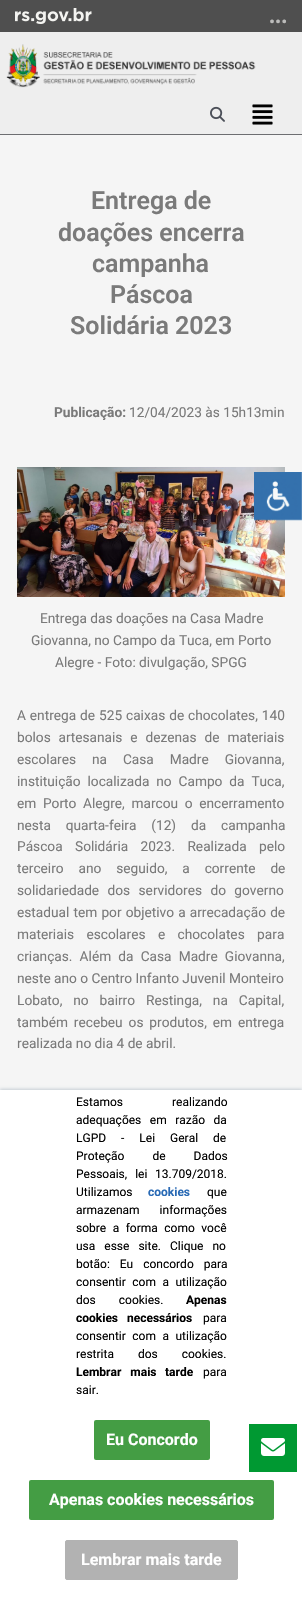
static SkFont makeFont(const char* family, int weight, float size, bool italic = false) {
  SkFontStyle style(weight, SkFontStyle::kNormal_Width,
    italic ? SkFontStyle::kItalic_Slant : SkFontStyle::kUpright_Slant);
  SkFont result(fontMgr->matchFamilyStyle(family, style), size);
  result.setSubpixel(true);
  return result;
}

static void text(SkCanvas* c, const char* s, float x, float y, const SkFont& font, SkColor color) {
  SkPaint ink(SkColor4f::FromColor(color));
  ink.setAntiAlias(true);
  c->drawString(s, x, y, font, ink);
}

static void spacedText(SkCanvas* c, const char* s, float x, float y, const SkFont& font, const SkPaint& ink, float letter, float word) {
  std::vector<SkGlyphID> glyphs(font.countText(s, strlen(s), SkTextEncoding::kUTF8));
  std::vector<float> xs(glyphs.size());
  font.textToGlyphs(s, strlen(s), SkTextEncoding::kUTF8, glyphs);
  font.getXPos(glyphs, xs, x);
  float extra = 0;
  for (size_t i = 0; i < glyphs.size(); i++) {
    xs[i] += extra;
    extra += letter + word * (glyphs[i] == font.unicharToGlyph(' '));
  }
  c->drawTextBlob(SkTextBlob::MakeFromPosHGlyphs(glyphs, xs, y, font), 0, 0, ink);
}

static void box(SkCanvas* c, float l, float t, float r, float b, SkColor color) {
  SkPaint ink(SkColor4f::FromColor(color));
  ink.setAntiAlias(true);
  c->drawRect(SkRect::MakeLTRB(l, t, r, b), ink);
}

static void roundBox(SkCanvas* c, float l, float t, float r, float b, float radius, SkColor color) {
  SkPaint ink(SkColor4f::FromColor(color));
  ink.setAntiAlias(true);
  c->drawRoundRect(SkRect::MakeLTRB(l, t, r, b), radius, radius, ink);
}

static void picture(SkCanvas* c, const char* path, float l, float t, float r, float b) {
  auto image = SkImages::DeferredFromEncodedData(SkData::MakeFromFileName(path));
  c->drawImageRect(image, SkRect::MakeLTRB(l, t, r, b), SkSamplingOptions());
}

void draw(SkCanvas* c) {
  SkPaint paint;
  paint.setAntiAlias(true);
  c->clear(0xfff5f5f5);
  box(c, 0, 0, 302, 32, 0xff4f4f4f);
  picture(c, "img_01.png", 15, 8, 92, 24);
  SkFont face1 = makeFont("Roboto", 400, 18);
  text(c, "•••", 269, 28, face1, 0xffbcbcbb);
  box(c, 0, 32, 302, 134, 0xffeeeeee);
  picture(c, "img_02.png", 6, 44, 256, 88);
  picture(c, "img_03.png", 210, 106, 225, 122);
  picture(c, "img_04.png", 252, 104, 273, 125);
  box(c, 0, 134, 302, 135, 0xff6d6e71);
  SkFont face2 = makeFont("Roboto", 600, 25);
  text(c, "Entrega de", 91, 209, face2, 0xff7a7a7a);
  text(c, "doações encerra", 58, 241, face2, 0xff7a7a7a);
  text(c, "campanha", 92, 272, face2, 0xff7a7a7a);
  text(c, "Páscoa", 110, 303, face2, 0xff7a7a7a);
  text(c, "Solidária 2023", 70, 334, face2, 0xff7a7a7a);
  SkFont face3 = makeFont("Roboto", 700, 13.7f);
  text(c, "Publicação:", 54, 417, face3, 0xff7a7a7a);
  SkFont face4 = makeFont("Roboto", 400, 13.7f);
  text(c, "12/04/2023 às 15h13min", 129, 417, face4, 0xff7a7a7a);
  picture(c, "img_05.png", 17, 467, 285, 597);
  text(c, "Entrega das doações na Casa Madre", 40, 623, face4, 0xff7a7a7a);
  text(c, "Giovanna, no Campo da Tuca, em Porto", 31, 645, face4, 0xff7a7a7a);
  text(c, "Alegre - Foto: divulgação, SPGG", 55, 667, face4, 0xff7a7a7a);
  paint.setColor(0xff7a7a7a);
  spacedText(c, "A entrega de 525 caixas de chocolates, 140", 17, 720, face4, paint, 0, 0.5f);
  spacedText(c, "bolos artesanais e dezenas de materiais", 17, 742, face4, paint, 0, 4.5f);
  spacedText(c, "escolares na Casa Madre Giovanna,", 17, 764, face4, paint, 0, 12.5f);
  spacedText(c, "instituição localizada no Campo da Tuca,", 17, 786, face4, paint, 0, 3.5f);
  spacedText(c, "em Porto Alegre, marcou o encerramento", 17, 808, face4, paint, 0, 3.25f);
  spacedText(c, "nesta quarta-feira (12) da campanha", 17, 830, face4, paint, 0, 11.5f);
  spacedText(c, "Páscoa Solidária 2023. Realizada pelo", 17, 851, face4, paint, 0, 9);
  spacedText(c, "terceiro ano seguido, a corrente de", 17, 873, face4, paint, 0, 11.5f);
  spacedText(c, "solidariedade dos servidores do governo", 17, 895, face4, paint, 0, 5);
  spacedText(c, "estadual tem por objetivo a arrecadação de", 17, 917, face4, paint, 0, 0.75f);
  spacedText(c, "materiais escolares e chocolates para", 17, 939, face4, paint, 0, 9);
  spacedText(c, "crianças. Além da Casa Madre Giovanna,", 17, 961, face4, paint, 0, 3.75f);
  text(c, "neste ano o Centro Infanto Juvenil Monteiro", 17, 983, face4, 0xff7a7a7a);
  spacedText(c, "Lobato, no bairro Restinga, na Capital,", 17, 1005, face4, paint, 0, 7.5f);
  spacedText(c, "também recebeu os produtos, em entrega", 17, 1027, face4, paint, 0, 2.5f);
  text(c, "realizada no dia 4 de abril.", 17, 1048, face4, 0xff7a7a7a);
  picture(c, "img_06.png", 254, 472, 302, 521);
  paint.setColor(0xffc5cdd4);
  paint.setMaskFilter(SkMaskFilter::MakeBlur(kNormal_SkBlurStyle, 1.5f));
  c->drawRect(SkRect::MakeLTRB(0, 1089, 302, 1599), paint);
  paint.setMaskFilter(nullptr);
  box(c, 0, 1090, 302, 1600, 0xffffffff);
  SkFont face5 = makeFont("Roboto", 400, 12);
  paint.setColor(0xff000000);
  spacedText(c, "Estamos realizando", 76, 1106, face5, paint, 0, 46);
  spacedText(c, "adequações em razão da", 76, 1124, face5, paint, 0, 5.5f);
  spacedText(c, "LGPD - Lei Geral de", 76, 1142, face5, paint, 0, 12);
  spacedText(c, "Proteção de Dados", 76, 1160, face5, paint, 0, 25);
  spacedText(c, "Pessoais, lei", 76, 1178, face5, paint, 0, 5);
  text(c, "13.709/2018.", 155, 1178, face5, 0xff000000);
  text(c, "Utilizamos", 76, 1196, face5, 0xff000000);
  SkFont face6 = makeFont("Roboto", 700, 12);
  text(c, "cookies", 148, 1196, face6, 0xff296ab5);
  text(c, "que", 207, 1196, face5, 0xff000000);
  spacedText(c, "armazenam informações", 76, 1214, face5, paint, 0, 17);
  spacedText(c, "sobre a forma como você", 76, 1232, face5, paint, 0, 3.5f);
  spacedText(c, "usa esse site.", 76, 1250, face5, paint, 0, 6);
  spacedText(c, "Clique no", 170, 1250, face5, paint, 0, 6);
  spacedText(c, "botão: Eu concordo para", 76, 1268, face5, paint, 0, 7);
  spacedText(c, "consentir com a utilização", 76, 1286, face5, paint, 0, 3.5f);
  spacedText(c, "dos cookies.", 76, 1304, face5, paint, 0, 20);
  text(c, "Apenas", 186, 1304, face6, 0xff000000);
  text(c, "cookies", 76, 1322, face6, 0xff000000);
  text(c, "necessários", 127, 1322, face6, 0xff000000);
  text(c, "para", 203, 1322, face5, 0xff000000);
  spacedText(c, "consentir com a utilização", 76, 1340, face5, paint, 0, 3.5f);
  spacedText(c, "restrita dos cookies.", 76, 1358, face5, paint, 0, 21);
  spacedText(c, "Lembrar mais", 76, 1376, face6, paint, 0, 6);
  text(c, "tarde", 165, 1376, face6, 0xff000000);
  text(c, "para", 203, 1376, face5, 0xff000000);
  text(c, "sair.", 76, 1394, face5, 0xff000000);
  roundBox(c, 94, 1420, 210, 1460, 2, 0xff449d44);
  SkFont face7 = makeFont("Roboto", 700, 16);
  text(c, "Eu Concordo", 106, 1445, face7, 0xffffffff);
  roundBox(c, 29, 1480, 274, 1520, 2, 0xff449d44);
  text(c, "Apenas cookies necessários", 49, 1505, face7, 0xffffffff);
  paint.setColor(0xffb2b2b2);
  c->drawRoundRect(SkRect::MakeLTRB(65.5f, 1540.5f, 237.5f, 1579.5f), 1.5f, 1.5f, paint);
  paint.setStyle(SkPaint::kStroke_Style);
  paint.setStrokeWidth(1);
  c->drawRoundRect(SkRect::MakeLTRB(65.5f, 1540.5f, 237.5f, 1579.5f), 1.5f, 1.5f, paint);
  text(c, "Lembrar mais tarde", 81, 1565, face7, 0xffffffff);
  box(c, 249, 1424, 297, 1472, 0xff009932);
  picture(c, "img_07.png", 261, 1438, 285, 1456);
}
